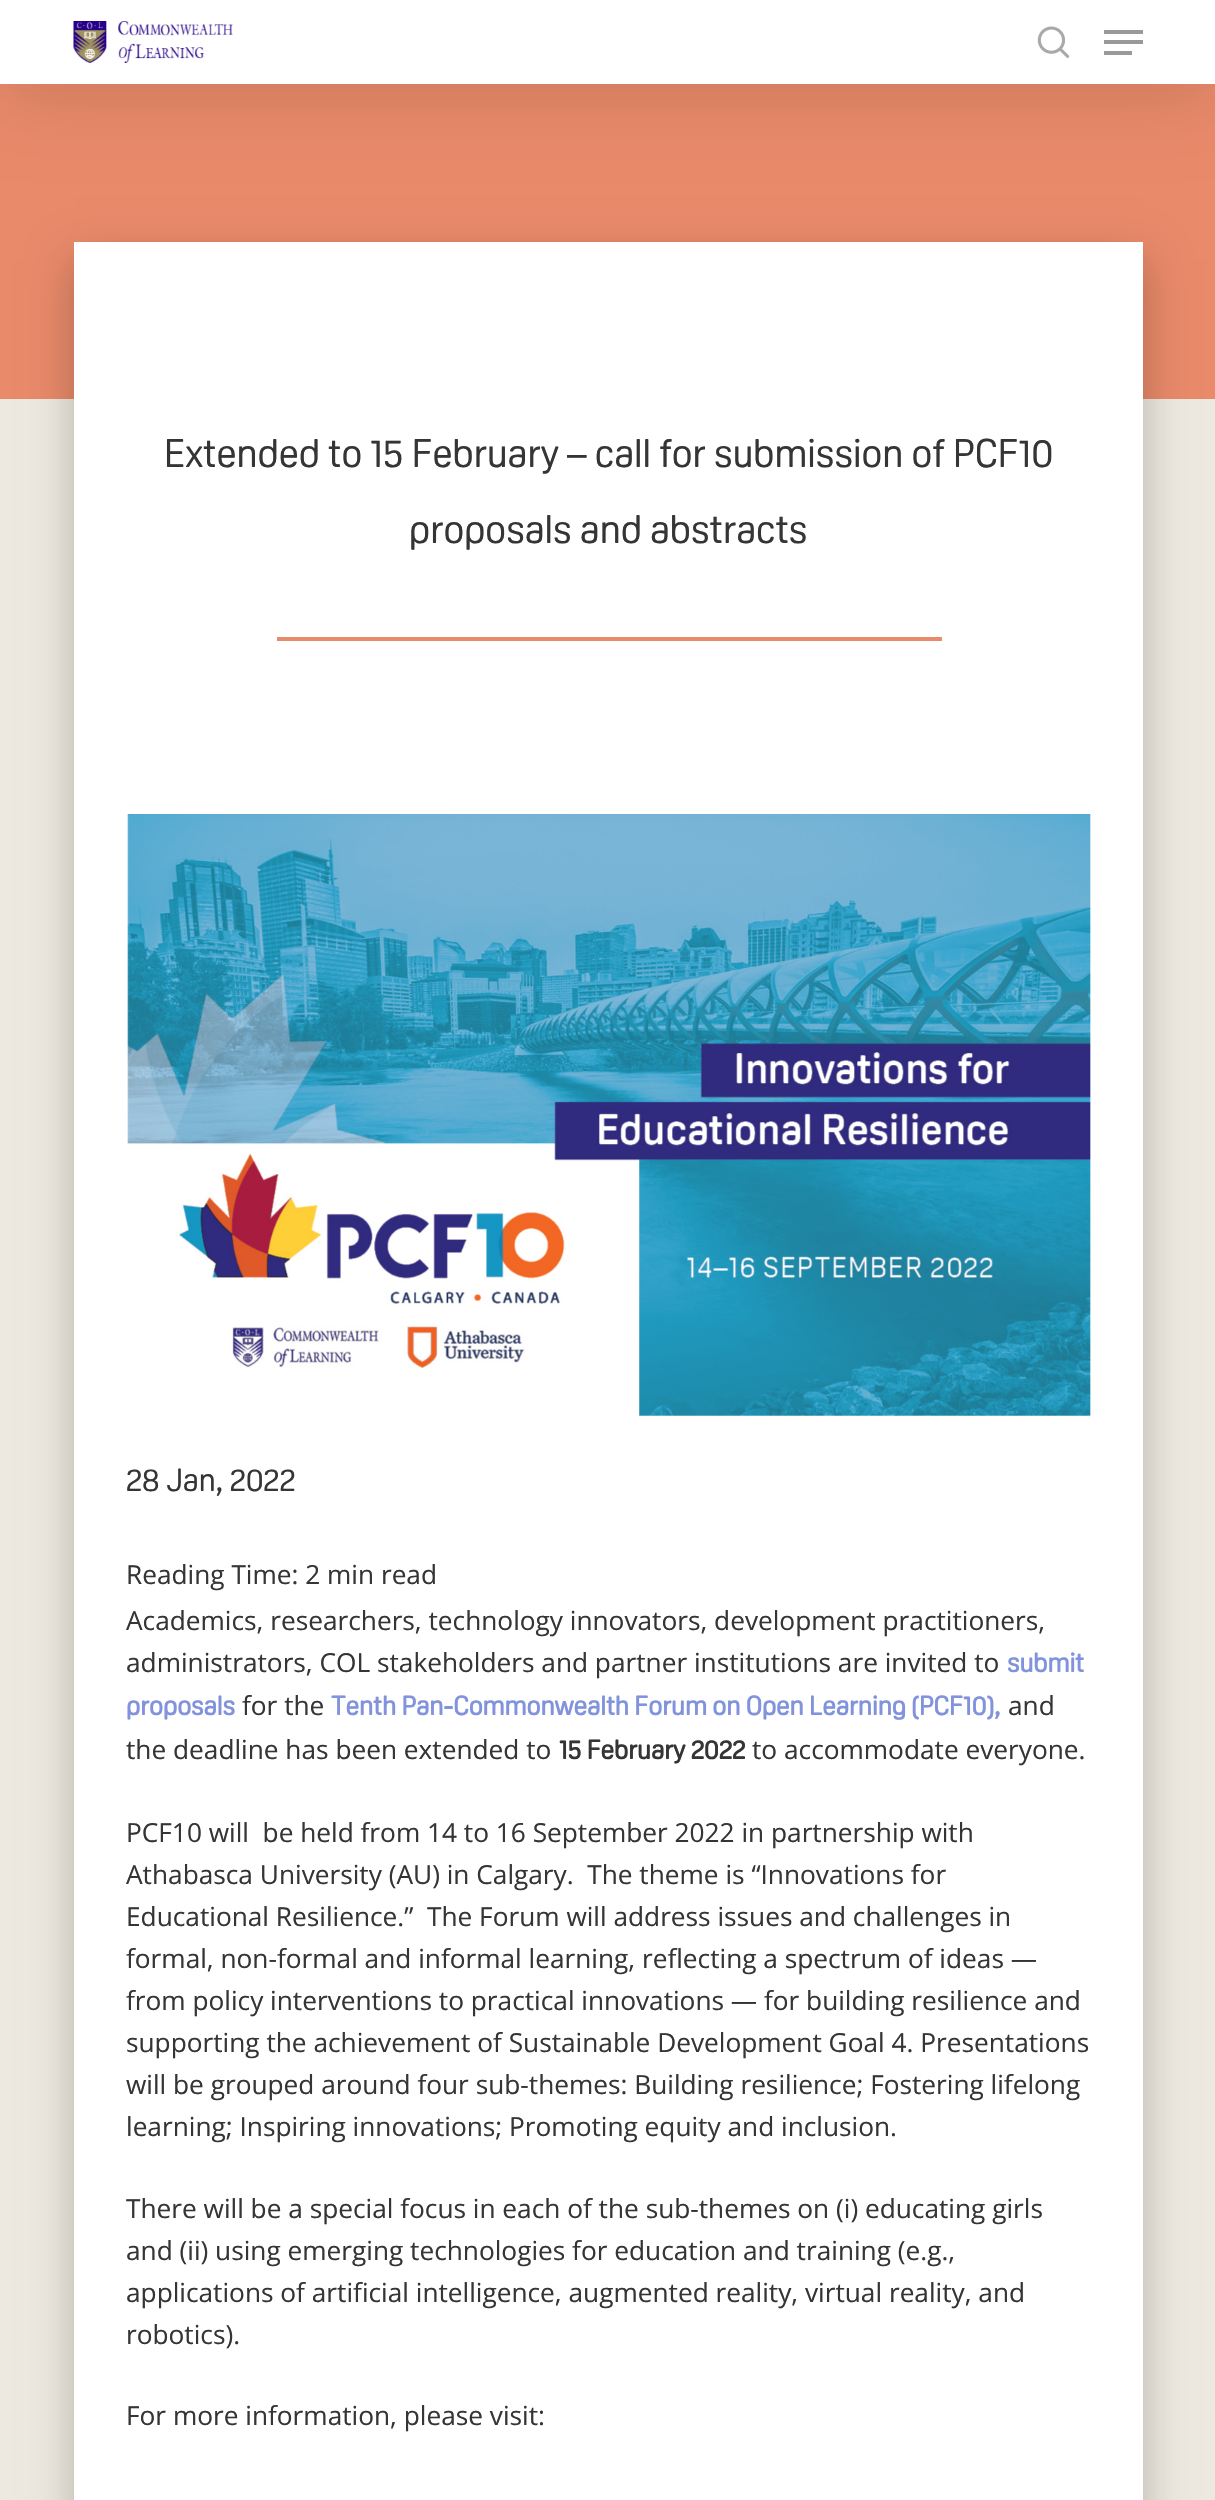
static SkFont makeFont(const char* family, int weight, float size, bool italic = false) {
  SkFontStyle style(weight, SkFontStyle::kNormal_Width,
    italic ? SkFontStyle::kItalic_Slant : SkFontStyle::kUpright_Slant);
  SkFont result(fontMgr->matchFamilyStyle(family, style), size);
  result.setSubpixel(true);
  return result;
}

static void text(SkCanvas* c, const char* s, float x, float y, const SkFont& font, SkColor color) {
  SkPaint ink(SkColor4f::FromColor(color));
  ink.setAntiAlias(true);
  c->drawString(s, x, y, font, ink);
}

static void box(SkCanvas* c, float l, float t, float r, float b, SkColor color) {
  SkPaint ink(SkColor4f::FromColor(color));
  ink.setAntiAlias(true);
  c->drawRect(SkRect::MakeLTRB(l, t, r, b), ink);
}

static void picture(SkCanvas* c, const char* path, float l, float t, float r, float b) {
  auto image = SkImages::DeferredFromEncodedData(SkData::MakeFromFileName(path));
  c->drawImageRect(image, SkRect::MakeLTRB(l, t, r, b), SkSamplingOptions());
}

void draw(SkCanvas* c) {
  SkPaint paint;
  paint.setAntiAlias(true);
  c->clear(0xffeee9e0);
  box(c, 0, 84, 1215, 399, 0xffe98a6a);
  paint.setColor(0x26000000);
  paint.setMaskFilter(SkMaskFilter::MakeBlur(kNormal_SkBlurStyle, 39.5f));
  c->drawRect(SkRect::MakeLTRB(0, 5, 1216, 89), paint);
  paint.setMaskFilter(nullptr);
  box(c, 0, 0, 1215, 84, 0xffffffff);
  picture(c, "img_01.png", 73, 21, 233, 63);
  picture(c, "img_02.png", 1037, 26, 1070, 58);
  box(c, 1104, 30, 1143, 34, 0xff999999);
  box(c, 1104, 51, 1132, 55, 0xff999999);
  box(c, 1104, 40, 1143, 44, 0xff999999);
  paint.setColor(0x3d000000);
  paint.setMaskFilter(SkMaskFilter::MakeBlur(kNormal_SkBlurStyle, 21));
  c->drawRect(SkRect::MakeLTRB(74, 259, 1143, 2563), paint);
  paint.setMaskFilter(nullptr);
  box(c, 74, 242, 1143, 2500, 0xffffffff);
  SkFont face1 = makeFont("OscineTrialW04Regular", 400, 39.2f);
  text(c, "Extended to 15 February – call for submission of PCF10", 164, 467, face1, 0xff353535);
  text(c, "proposals and abstracts", 409, 543, face1, 0xff353535);
  box(c, 277, 637, 942, 641, 0xffe98a6a);
  picture(c, "img_03.png", 127, 814, 1091, 1416);
  SkFont face2 = makeFont("OscineTrialW04Regular", 400, 31.5f);
  text(c, "28 Jan, 2022", 126, 1491, face2, 0xff353535);
  SkFont face3 = makeFont("Open Sans", 400, 26.25f);
  text(c, "Reading Time: 2 min read", 126, 1584, face3, 0xff353535);
  text(c, "Academics, researchers, technology innovators, development practitioners,", 126, 1630, face3, 0xff353535);
  text(c, "administrators, COL stakeholders and partner institutions are invited to", 126, 1672, face3, 0xff353535);
  SkFont face4 = makeFont("OscineTrialW04Regular", 700, 26.25f);
  text(c, "submit", 1007, 1672, face4, 0xff8193dc);
  text(c, "proposals", 126, 1715, face4, 0xff8193dc);
  text(c, "for the", 242, 1715, face3, 0xff353535);
  text(c, "Tenth Pan-Commonwealth Forum on Open Learning (PCF10),", 331, 1715, face4, 0xff8193dc);
  text(c, "and", 1008, 1715, face3, 0xff353535);
  text(c, "the deadline has been extended to", 126, 1759, face3, 0xff353535);
  text(c, "15 February 2022", 559, 1759, face4, 0xff353535);
  text(c, "to accommodate everyone.", 752, 1759, face3, 0xff353535);
  text(c, "PCF10 will  be held from 14 to 16 September 2022 in partnership with", 126, 1842, face3, 0xff353535);
  text(c, "Athabasca University (AU) in Calgary.  The theme is “Innovations for", 126, 1884, face3, 0xff353535);
  text(c, "Educational Resilience.”  The Forum will address issues and challenges in", 126, 1926, face3, 0xff353535);
  text(c, "formal, non-formal and informal learning, reflecting a spectrum of ideas —", 126, 1968, face3, 0xff353535);
  text(c, "from policy interventions to practical innovations — for building resilience and", 126, 2010, face3, 0xff353535);
  text(c, "supporting the achievement of Sustainable Development Goal 4. Presentations", 126, 2052, face3, 0xff353535);
  text(c, "will be grouped around four sub-themes: Building resilience; Fostering lifelong", 126, 2094, face3, 0xff353535);
  text(c, "learning; Inspiring innovations; Promoting equity and inclusion.", 126, 2136, face3, 0xff353535);
  text(c, "There will be a special focus in each of the sub-themes on (i) educating girls", 126, 2218, face3, 0xff353535);
  text(c, "and (ii) using emerging technologies for education and training (e.g.,", 126, 2260, face3, 0xff353535);
  text(c, "applications of artificial intelligence, augmented reality, virtual reality, and", 126, 2302, face3, 0xff353535);
  text(c, "robotics).", 126, 2344, face3, 0xff353535);
  text(c, "For more information, please visit:", 126, 2425, face3, 0xff353535);
}
